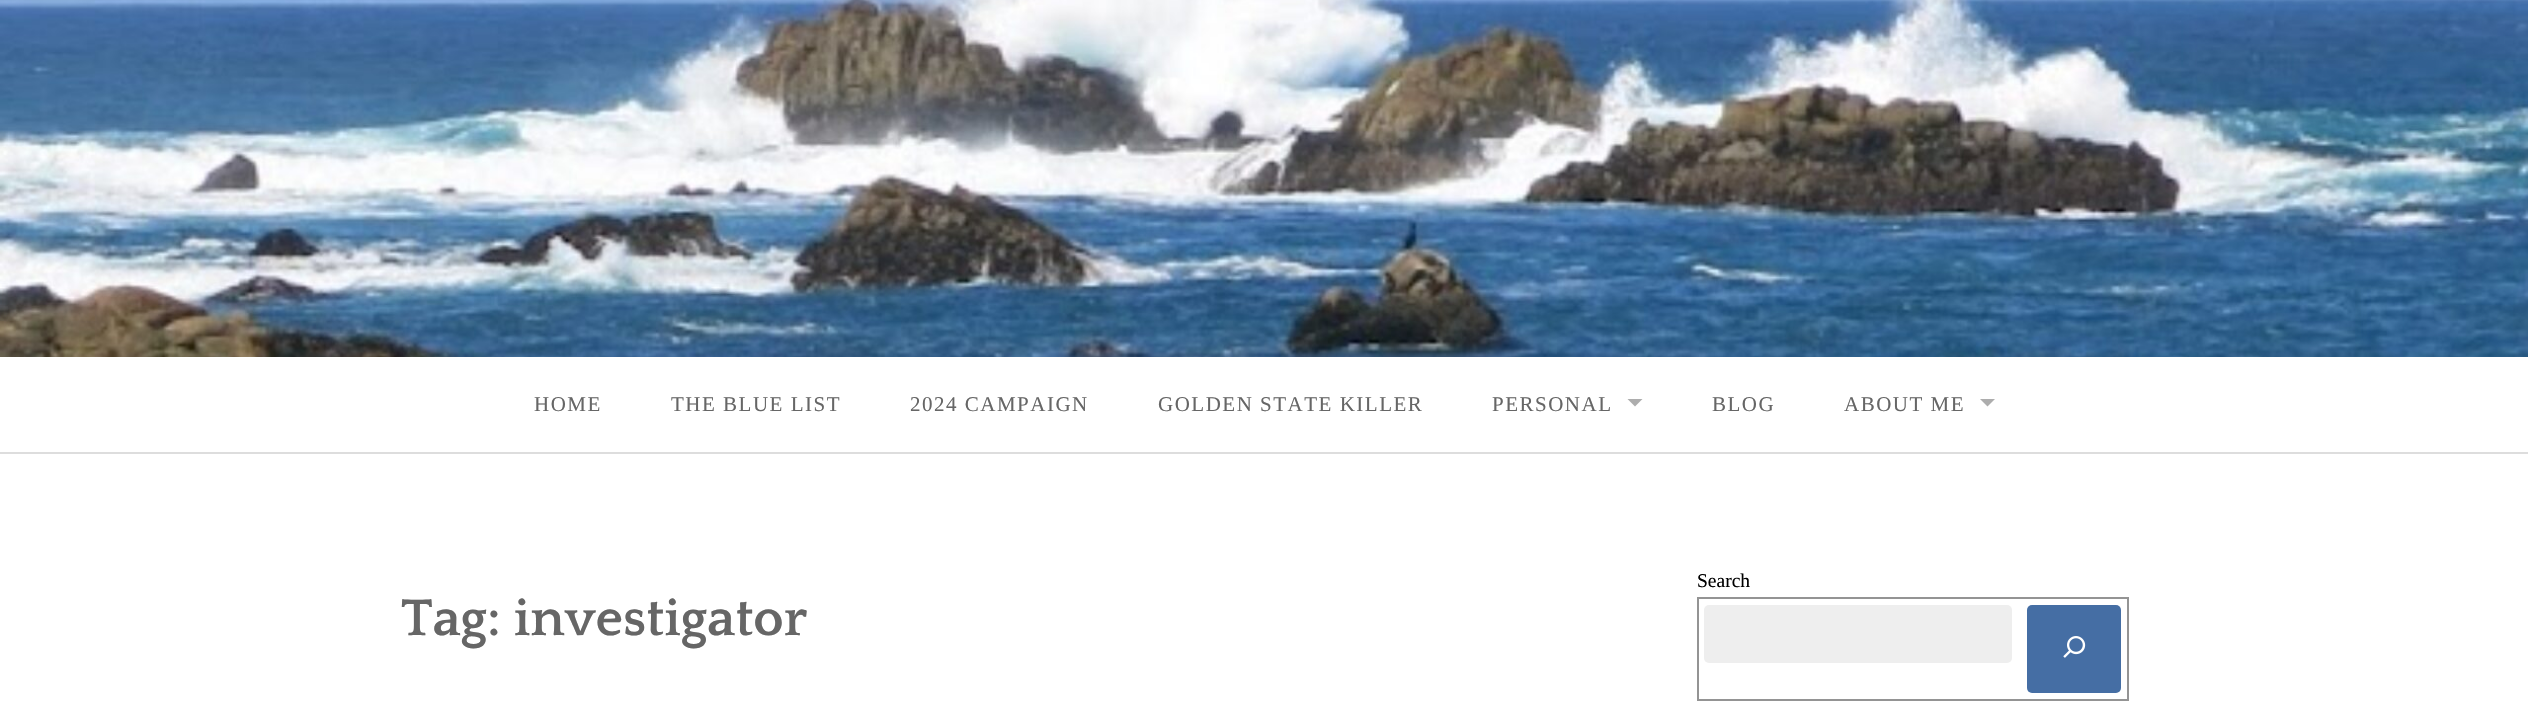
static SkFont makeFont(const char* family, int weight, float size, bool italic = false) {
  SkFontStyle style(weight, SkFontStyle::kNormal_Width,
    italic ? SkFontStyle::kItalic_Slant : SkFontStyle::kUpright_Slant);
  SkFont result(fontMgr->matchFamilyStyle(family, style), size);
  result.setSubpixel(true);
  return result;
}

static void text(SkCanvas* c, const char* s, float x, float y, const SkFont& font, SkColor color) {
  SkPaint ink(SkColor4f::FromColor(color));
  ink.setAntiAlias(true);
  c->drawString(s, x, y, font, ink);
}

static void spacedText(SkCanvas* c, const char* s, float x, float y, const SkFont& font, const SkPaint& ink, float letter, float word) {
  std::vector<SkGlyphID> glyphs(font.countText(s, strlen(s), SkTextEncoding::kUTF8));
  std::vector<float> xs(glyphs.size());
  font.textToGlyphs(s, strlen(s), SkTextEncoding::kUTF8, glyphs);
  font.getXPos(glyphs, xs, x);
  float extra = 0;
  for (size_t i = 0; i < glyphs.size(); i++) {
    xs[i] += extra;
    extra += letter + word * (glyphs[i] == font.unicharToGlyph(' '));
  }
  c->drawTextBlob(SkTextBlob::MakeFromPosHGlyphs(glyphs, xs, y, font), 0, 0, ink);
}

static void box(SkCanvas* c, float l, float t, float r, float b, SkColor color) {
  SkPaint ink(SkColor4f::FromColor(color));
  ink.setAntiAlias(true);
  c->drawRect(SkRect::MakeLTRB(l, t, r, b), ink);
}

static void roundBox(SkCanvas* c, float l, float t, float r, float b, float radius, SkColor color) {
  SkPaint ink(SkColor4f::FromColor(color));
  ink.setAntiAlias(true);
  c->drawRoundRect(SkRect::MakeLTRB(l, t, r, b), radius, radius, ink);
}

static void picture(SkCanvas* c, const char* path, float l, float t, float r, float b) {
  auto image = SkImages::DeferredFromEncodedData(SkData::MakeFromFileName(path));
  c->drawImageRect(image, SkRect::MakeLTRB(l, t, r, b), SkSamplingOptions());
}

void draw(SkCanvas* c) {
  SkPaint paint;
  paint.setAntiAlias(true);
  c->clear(0xffffffff);
  picture(c, "img_01.png", 0, 0, 2528, 357);
  box(c, 0, 452, 2528, 454, 0xffdddddd);
  SkFont face1 = makeFont("Liberation Serif", 400, 21);
  paint.setColor(0xff666666);
  spacedText(c, "HOME", 534, 411, face1, paint, 1.5f, 0);
  spacedText(c, "THE BLUE LIST", 671, 411, face1, paint, 1.5f, 0);
  spacedText(c, "2024 CAMPAIGN", 910, 411, face1, paint, 1.5f, 0);
  spacedText(c, "GOLDEN STATE KILLER", 1158, 411, face1, paint, 1.5f, 0);
  spacedText(c, "PERSONAL", 1492, 411, face1, paint, 1.5f, 0);
  paint.setColor(0xffadadad);
  c->drawPath(SkPathBuilder().moveTo(1627.5f, 399).lineTo(1642.5f, 399).lineTo(1635, 406.5f).close().detach(), paint);
  paint.setColor(0xff666666);
  spacedText(c, "BLOG", 1712, 411, face1, paint, 1.5f, 0);
  spacedText(c, "ABOUT ME", 1844, 411, face1, paint, 1.5f, 0);
  paint.setColor(0xffadadad);
  c->drawPath(SkPathBuilder().moveTo(1980, 399).lineTo(1995, 399).lineTo(1987.5f, 406.5f).close().detach(), paint);
  SkFont face2 = makeFont("Liberation Serif", 400, 19.5f);
  text(c, "Search", 1697, 587, face2, 0xff000000);
  paint.setStyle(SkPaint::kStroke_Style);
  paint.setStrokeWidth(2);
  paint.setColor(0xff949494);
  c->drawRect(SkRect::MakeLTRB(1698, 598, 2128, 700), paint);
  roundBox(c, 1704, 605, 2012, 663, 5, 0xffeeeeee);
  roundBox(c, 2027, 605, 2121, 693, 5, 0xff456ea4);
  picture(c, "img_02.png", 2063, 636, 2086, 658);
  SkFont face3 = makeFont("Quattrocento", 700, 54);
  text(c, "Tag: investigator", 401, 635, face3, 0xff666666);
}
